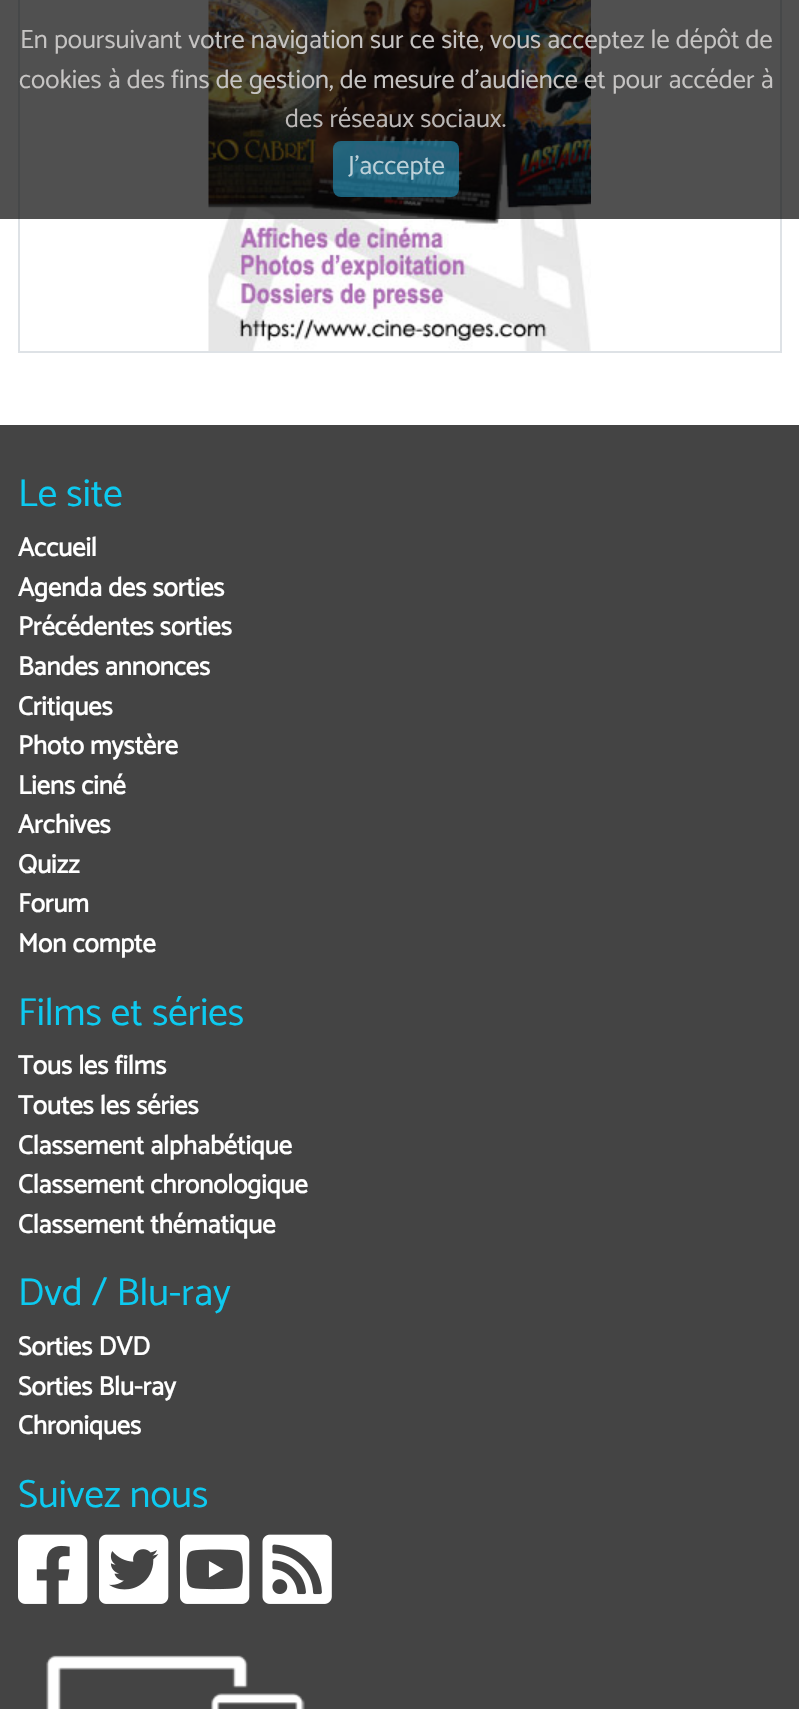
static SkFont makeFont(const char* family, int weight, float size, bool italic = false) {
  SkFontStyle style(weight, SkFontStyle::kNormal_Width,
    italic ? SkFontStyle::kItalic_Slant : SkFontStyle::kUpright_Slant);
  SkFont result(fontMgr->matchFamilyStyle(family, style), size);
  result.setSubpixel(true);
  return result;
}

static void text(SkCanvas* c, const char* s, float x, float y, const SkFont& font, SkColor color) {
  SkPaint ink(SkColor4f::FromColor(color));
  ink.setAntiAlias(true);
  c->drawString(s, x, y, font, ink);
}

static void box(SkCanvas* c, float l, float t, float r, float b, SkColor color) {
  SkPaint ink(SkColor4f::FromColor(color));
  ink.setAntiAlias(true);
  c->drawRect(SkRect::MakeLTRB(l, t, r, b), ink);
}

static void roundBox(SkCanvas* c, float l, float t, float r, float b, float radius, SkColor color) {
  SkPaint ink(SkColor4f::FromColor(color));
  ink.setAntiAlias(true);
  c->drawRoundRect(SkRect::MakeLTRB(l, t, r, b), radius, radius, ink);
}

static void picture(SkCanvas* c, const char* path, float l, float t, float r, float b) {
  auto image = SkImages::DeferredFromEncodedData(SkData::MakeFromFileName(path));
  c->drawImageRect(image, SkRect::MakeLTRB(l, t, r, b), SkSamplingOptions());
}

void draw(SkCanvas* c) {
  SkPaint paint;
  paint.setAntiAlias(true);
  c->clear(0xffffffff);
  paint.setStyle(SkPaint::kStroke_Style);
  paint.setStrokeWidth(2);
  paint.setColor(0xffdee2e6);
  c->drawRect(SkRect::MakeLTRB(19, -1, 781, 352), paint);
  picture(c, "img_01.png", 208, 0, 591, 351);
  box(c, 0, 0, 799, 219, 0xb3050505);
  SkFont face1 = makeFont("Catamaran", 100, 26.4f);
  text(c, "En poursuivant votre navigation sur ce site, vous acceptez le dépôt de", 20, 48, face1, 0xffc6c4c3);
  text(c, "cookies à des fins de gestion, de mesure d’audience et pour accéder à", 19, 88, face1, 0xffc6c4c3);
  text(c, "des réseaux sociaux.", 285, 127, face1, 0xffbbb8b7);
  roundBox(c, 333, 141, 459, 197, 8, 0xb31f83a8);
  text(c, "J'accepte", 348, 174, face1, 0xffbdd1d9);
  box(c, 0, 425, 799, 1709, 0xff444444);
  SkFont face2 = makeFont("Catamaran", 100, 39);
  text(c, "Le site", 18, 506, face2, 0xff0dcaf0);
  SkFont face3 = makeFont("Catamaran", 700, 26.4f);
  text(c, "Accueil", 18, 556, face3, 0xffffffff);
  text(c, "Agenda des sorties", 18, 596, face3, 0xffffffff);
  text(c, "Précédentes sorties", 18, 635, face3, 0xffffffff);
  text(c, "Bandes annonces", 18, 675, face3, 0xffffffff);
  text(c, "Critiques", 18, 715, face3, 0xffffffff);
  text(c, "Photo mystère", 18, 754, face3, 0xffffffff);
  text(c, "Liens ciné", 18, 794, face3, 0xffffffff);
  text(c, "Archives", 18, 833, face3, 0xffffffff);
  text(c, "Quizz", 18, 873, face3, 0xffffffff);
  text(c, "Forum", 18, 912, face3, 0xffffffff);
  text(c, "Mon compte", 18, 952, face3, 0xffffffff);
  text(c, "Films et séries", 18, 1025, face2, 0xff0dcaf0);
  text(c, "Tous les films", 18, 1074, face3, 0xffffffff);
  text(c, "Toutes les séries", 18, 1114, face3, 0xffffffff);
  text(c, "Classement alphabétique", 18, 1154, face3, 0xffffffff);
  text(c, "Classement chronologique", 18, 1193, face3, 0xffffffff);
  text(c, "Classement thématique", 18, 1233, face3, 0xffffffff);
  text(c, "Dvd / Blu-ray", 18, 1305, face2, 0xff0dcaf0);
  text(c, "Sorties DVD", 18, 1355, face3, 0xffffffff);
  text(c, "Sorties Blu-ray", 18, 1395, face3, 0xffffffff);
  text(c, "Chroniques", 18, 1434, face3, 0xffffffff);
  text(c, "Suivez nous", 18, 1507, face2, 0xff0dcaf0);
  picture(c, "img_02.png", 18, 1534, 88, 1604);
  picture(c, "img_03.png", 99, 1534, 169, 1604);
  picture(c, "img_04.png", 180, 1534, 250, 1604);
  picture(c, "img_05.png", 262, 1534, 332, 1604);
  picture(c, "img_06.png", 46, 1655, 305, 1709);
}
